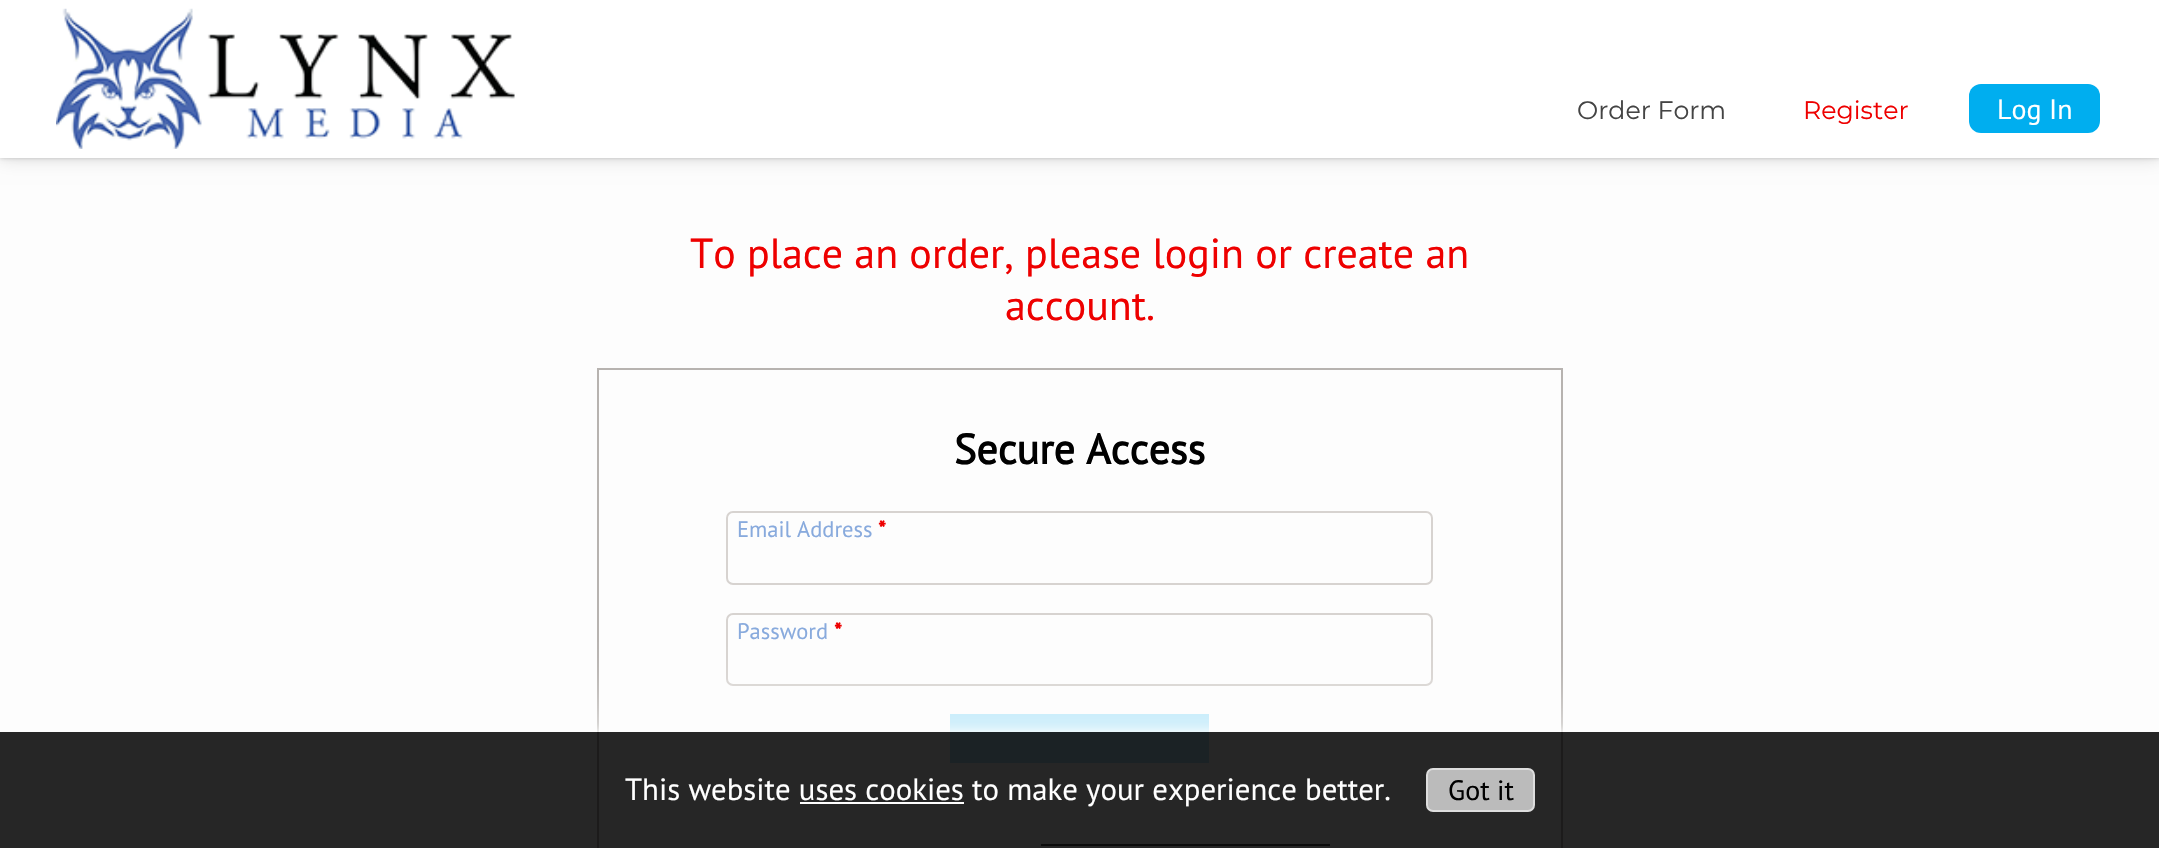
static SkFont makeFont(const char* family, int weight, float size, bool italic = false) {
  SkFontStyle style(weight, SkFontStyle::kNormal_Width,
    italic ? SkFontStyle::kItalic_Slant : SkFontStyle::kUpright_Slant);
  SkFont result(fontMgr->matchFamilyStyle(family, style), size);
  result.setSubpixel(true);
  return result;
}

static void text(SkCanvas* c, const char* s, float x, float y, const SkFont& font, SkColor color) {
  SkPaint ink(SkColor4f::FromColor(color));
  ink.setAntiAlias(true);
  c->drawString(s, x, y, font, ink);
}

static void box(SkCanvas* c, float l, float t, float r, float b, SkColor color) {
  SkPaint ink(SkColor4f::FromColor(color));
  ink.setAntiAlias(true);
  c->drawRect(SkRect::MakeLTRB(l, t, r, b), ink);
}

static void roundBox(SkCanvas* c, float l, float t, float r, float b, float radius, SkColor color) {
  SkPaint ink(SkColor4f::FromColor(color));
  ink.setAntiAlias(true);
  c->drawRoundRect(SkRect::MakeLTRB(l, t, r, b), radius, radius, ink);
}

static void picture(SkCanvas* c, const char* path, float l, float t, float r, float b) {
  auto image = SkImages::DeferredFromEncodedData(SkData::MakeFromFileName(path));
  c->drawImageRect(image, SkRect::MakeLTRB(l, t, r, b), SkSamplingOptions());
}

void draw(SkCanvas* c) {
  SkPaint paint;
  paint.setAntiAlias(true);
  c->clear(0xfffdfdfd);
  paint.setColor(0x33000000);
  paint.setMaskFilter(SkMaskFilter::MakeBlur(kNormal_SkBlurStyle, 2));
  c->drawRect(SkRect::MakeLTRB(0, 0, 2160, 158), paint);
  paint.setMaskFilter(nullptr);
  paint.setColor(0x26000000);
  paint.setMaskFilter(SkMaskFilter::MakeBlur(kNormal_SkBlurStyle, 9));
  c->drawRect(SkRect::MakeLTRB(0, 0, 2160, 158), paint);
  paint.setMaskFilter(nullptr);
  box(c, 0, 0, 2159, 158, 0xffffffff);
  picture(c, "img_01.png", 56, 8, 515, 149);
  SkFont face1 = makeFont("Montserrat", 100, 25.25f);
  text(c, "Order Form", 1577, 119, face1, 0xff444444);
  text(c, "Register", 1803, 119, face1, 0xffee0000);
  roundBox(c, 1969, 84, 2100, 133, 12, 0xff00aeef);
  SkFont face2 = makeFont("PT Sans", 400, 28);
  text(c, "Log In", 1997, 119, face2, 0xffffffff);
  SkFont face3 = makeFont("PT Sans", 400, 42);
  text(c, "To place an order, please login or create an", 690, 268, face3, 0xffee0000);
  text(c, "account.", 1005, 320, face3, 0xffee0000);
  paint.setStyle(SkPaint::kStroke_Style);
  paint.setStrokeWidth(2);
  paint.setColor(0xffb7b3b0);
  c->drawRect(SkRect::MakeLTRB(598, 369, 1562, 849), paint);
  SkFont face4 = makeFont("PT Sans", 700, 42);
  text(c, "Secure Access", 954, 464, face4, 0xff000000);
  paint.setColor(0xffd7d3d0);
  c->drawRoundRect(SkRect::MakeLTRB(727, 512, 1432, 584), 6, 6, paint);
  SkFont face5 = makeFont("PT Sans", 400, 22.5f);
  text(c, "Email Address", 737, 537, face5, 0xff88aadd);
  SkFont face6 = makeFont("PT Sans", 700, 22.5f);
  text(c, "*", 878, 537, face6, 0xffee0000);
  c->drawRoundRect(SkRect::MakeLTRB(727, 614, 1432, 685), 6, 6, paint);
  text(c, "Password", 737, 639, face5, 0xff88aadd);
  text(c, "*", 834, 639, face6, 0xffee0000);
  box(c, 950, 714, 1209, 763, 0xffb1e5f9);
  box(c, 1041, 844, 1330, 846, 0xff444444);
  c->save();
  c->clipRect(SkRect::MakeLTRB(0, 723, 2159, 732));
  paint.setStyle(SkPaint::kFill_Style);
  paint.setColor(0xffffffff);
  paint.setMaskFilter(SkMaskFilter::MakeBlur(kNormal_SkBlurStyle, 4.5f));
  c->drawRect(SkRect::MakeLTRB(0, 732, 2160, 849), paint);
  paint.setMaskFilter(nullptr);
  c->restore();
  c->save();
  c->clipRect(SkRect::MakeLTRB(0, 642, 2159, 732));
  paint.setMaskFilter(SkMaskFilter::MakeBlur(kNormal_SkBlurStyle, 44));
  c->drawRect(SkRect::MakeLTRB(0, 732, 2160, 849), paint);
  paint.setMaskFilter(nullptr);
  c->restore();
  box(c, 0, 732, 2159, 848, 0xd9000000);
  SkFont face7 = makeFont("PT Sans", 400, 30.8f);
  text(c, "This website uses cookies to make your experience better.", 625, 800, face7, 0xffffffff);
  paint.setColor(0xffbbbbbb);
  c->drawRoundRect(SkRect::MakeLTRB(1427, 769, 1534, 811), 6, 6, paint);
  paint.setStyle(SkPaint::kStroke_Style);
  paint.setColor(0xffdddddd);
  c->drawRoundRect(SkRect::MakeLTRB(1427, 769, 1534, 811), 6, 6, paint);
  text(c, "Got it", 1448, 800, face2, 0xff000000);
  box(c, 800, 802, 964, 804, 0xffffffff);
}
